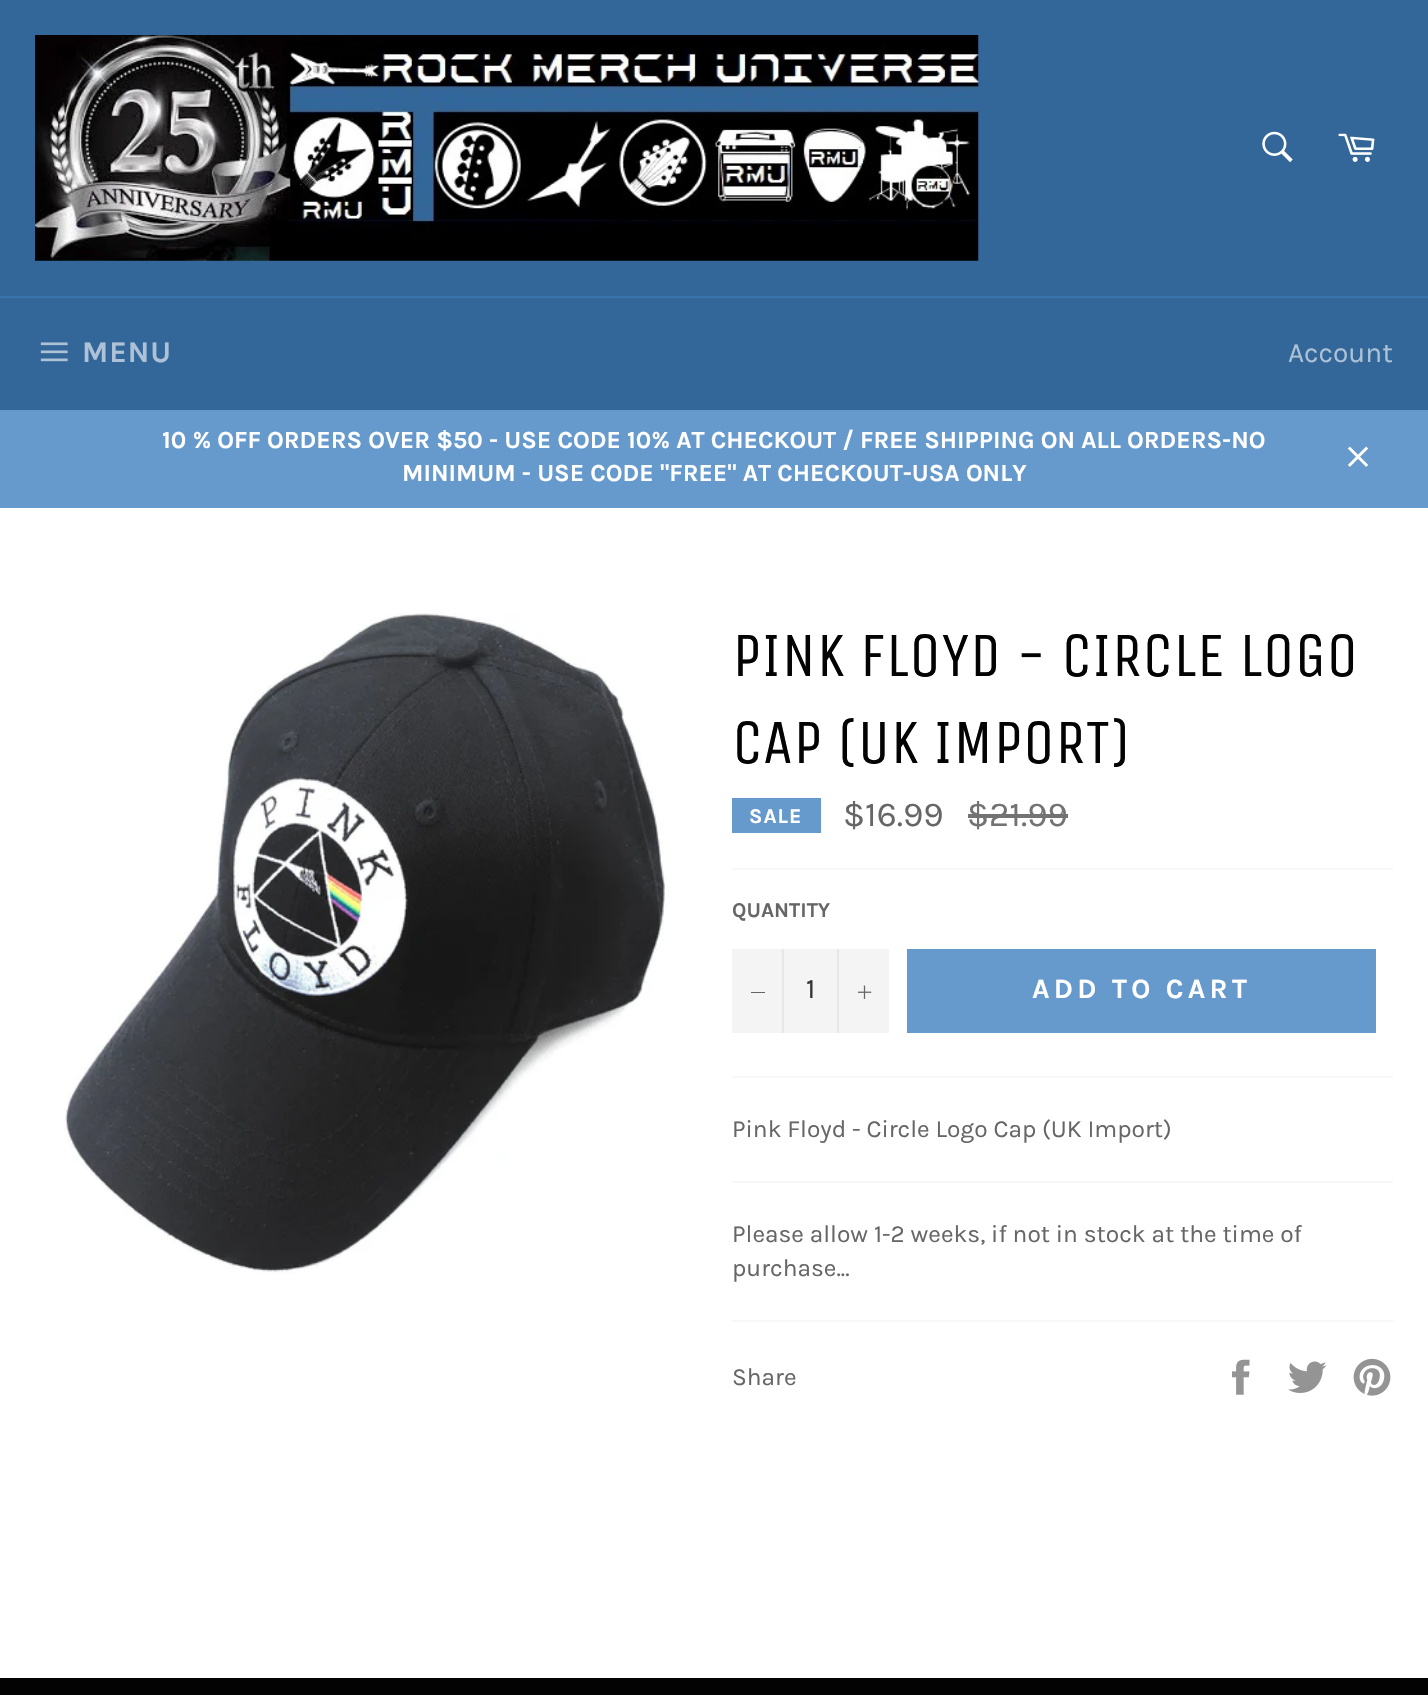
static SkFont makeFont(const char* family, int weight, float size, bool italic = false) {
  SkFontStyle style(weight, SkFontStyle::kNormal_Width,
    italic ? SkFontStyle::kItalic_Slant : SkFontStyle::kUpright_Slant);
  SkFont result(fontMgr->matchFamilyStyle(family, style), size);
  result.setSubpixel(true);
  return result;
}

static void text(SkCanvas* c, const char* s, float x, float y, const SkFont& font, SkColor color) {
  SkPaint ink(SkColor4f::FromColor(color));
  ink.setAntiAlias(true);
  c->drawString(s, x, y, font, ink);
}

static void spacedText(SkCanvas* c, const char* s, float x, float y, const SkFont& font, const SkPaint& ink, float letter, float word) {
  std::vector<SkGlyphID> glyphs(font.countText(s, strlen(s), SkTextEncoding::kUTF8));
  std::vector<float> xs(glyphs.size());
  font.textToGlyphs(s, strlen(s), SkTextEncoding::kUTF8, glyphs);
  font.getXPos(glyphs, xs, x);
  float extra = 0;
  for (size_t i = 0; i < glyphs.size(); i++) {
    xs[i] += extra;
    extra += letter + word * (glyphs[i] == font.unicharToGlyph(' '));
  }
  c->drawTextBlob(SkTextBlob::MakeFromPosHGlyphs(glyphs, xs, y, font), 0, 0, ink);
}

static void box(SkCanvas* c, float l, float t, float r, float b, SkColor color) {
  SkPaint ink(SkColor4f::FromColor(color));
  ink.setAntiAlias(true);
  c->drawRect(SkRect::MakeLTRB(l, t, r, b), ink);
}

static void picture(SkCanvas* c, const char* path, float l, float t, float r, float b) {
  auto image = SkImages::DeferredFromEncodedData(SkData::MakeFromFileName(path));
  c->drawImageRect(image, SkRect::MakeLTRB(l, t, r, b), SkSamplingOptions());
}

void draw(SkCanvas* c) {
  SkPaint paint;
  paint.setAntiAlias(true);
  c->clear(0xff336699);
  picture(c, "img_01.png", 35, 35, 979, 261);
  picture(c, "img_02.png", 1262, 131, 1293, 163);
  picture(c, "img_03.png", 1338, 133, 1375, 162);
  box(c, 0, 296, 1428, 298, 0xff3973ac);
  picture(c, "img_04.png", 40, 342, 68, 362);
  SkFont face1 = makeFont("Karla", 700, 30);
  paint.setColor(0xffadc2d6);
  spacedText(c, "MENU", 82, 362, face1, paint, 1, 0);
  SkFont face2 = makeFont("Karla", 400, 28);
  text(c, "Account", 1288, 362, face2, 0xffadc2d6);
  box(c, 0, 410, 1428, 508, 0xff6699cc);
  SkFont face3 = makeFont("Karla", 700, 24.5f);
  text(c, "10 % OFF ORDERS OVER $50 - USE CODE 10% AT CHECKOUT / FREE SHIPPING ON ALL ORDERS-NO", 162, 448, face3, 0xffffffff);
  text(c, "MINIMUM - USE CODE \"FREE\" AT CHECKOUT-USA ONLY", 402, 481, face3, 0xffffffff);
  picture(c, "img_05.png", 1347, 446, 1369, 467);
  box(c, 0, 508, 1428, 1678, 0xffffffff);
  picture(c, "img_06.png", 64, 613, 667, 1274);
  SkFont face4 = makeFont("Unica One", 400, 63);
  text(c, "PINK FLOYD - CIRCLE LOGO", 732, 676, face4, 0xff030303);
  text(c, "CAP (UK IMPORT)", 732, 763, face4, 0xff030303);
  box(c, 732, 798, 821, 833, 0xff6699cc);
  SkFont face5 = makeFont("Karla", 700, 21);
  paint.setColor(0xffffffff);
  spacedText(c, "SALE", 749, 823, face5, paint, 1, 0);
  SkFont face6 = makeFont("Karla", 400, 35);
  text(c, "$16.99", 843, 826, face6, 0xff666666);
  text(c, "$21.99", 967, 826, face6, 0xff737373);
  box(c, 968, 814, 1068, 818, 0xff737373);
  box(c, 732, 868, 1393, 870, 0xfff7f7f7);
  text(c, "QUANTITY", 732, 917, face5, 0xff666666);
  box(c, 732, 949, 889, 1033, 0xfff4f4f4);
  box(c, 782, 949, 784, 1033, 0xffe7e7e7);
  box(c, 751, 992, 765, 993, 0xff666666);
  text(c, "1", 806, 998, face2, 0xff333333);
  box(c, 837, 949, 839, 1033, 0xffe7e7e7);
  picture(c, "img_07.png", 858, 985, 872, 999);
  box(c, 907, 949, 1376, 1033, 0xff6699cc);
  SkFont face7 = makeFont("Karla", 700, 28);
  spacedText(c, "ADD TO CART", 1032, 998, face7, paint, 4.25f, 0);
  box(c, 732, 1076, 1393, 1078, 0xfff7f7f7);
  SkFont face8 = makeFont("Karla", 400, 24.5f);
  text(c, "Pink Floyd - Circle Logo Cap (UK Import)", 732, 1137, face8, 0xff666666);
  box(c, 732, 1181, 1393, 1183, 0xfff7f7f7);
  text(c, "Please allow 1-2 weeks, if not in stock at the time of", 732, 1242, face8, 0xff666666);
  text(c, "purchase...", 732, 1276, face8, 0xff666666);
  box(c, 732, 1320, 1393, 1322, 0xfff7f7f7);
  text(c, "Share", 732, 1385, face8, 0xff666666);
  picture(c, "img_08.png", 1232, 1359, 1250, 1395);
  picture(c, "img_09.png", 1288, 1361, 1327, 1393);
  picture(c, "img_10.png", 1353, 1358, 1391, 1396);
  box(c, 0, 1678, 1428, 1695, 0xff030303);
}
